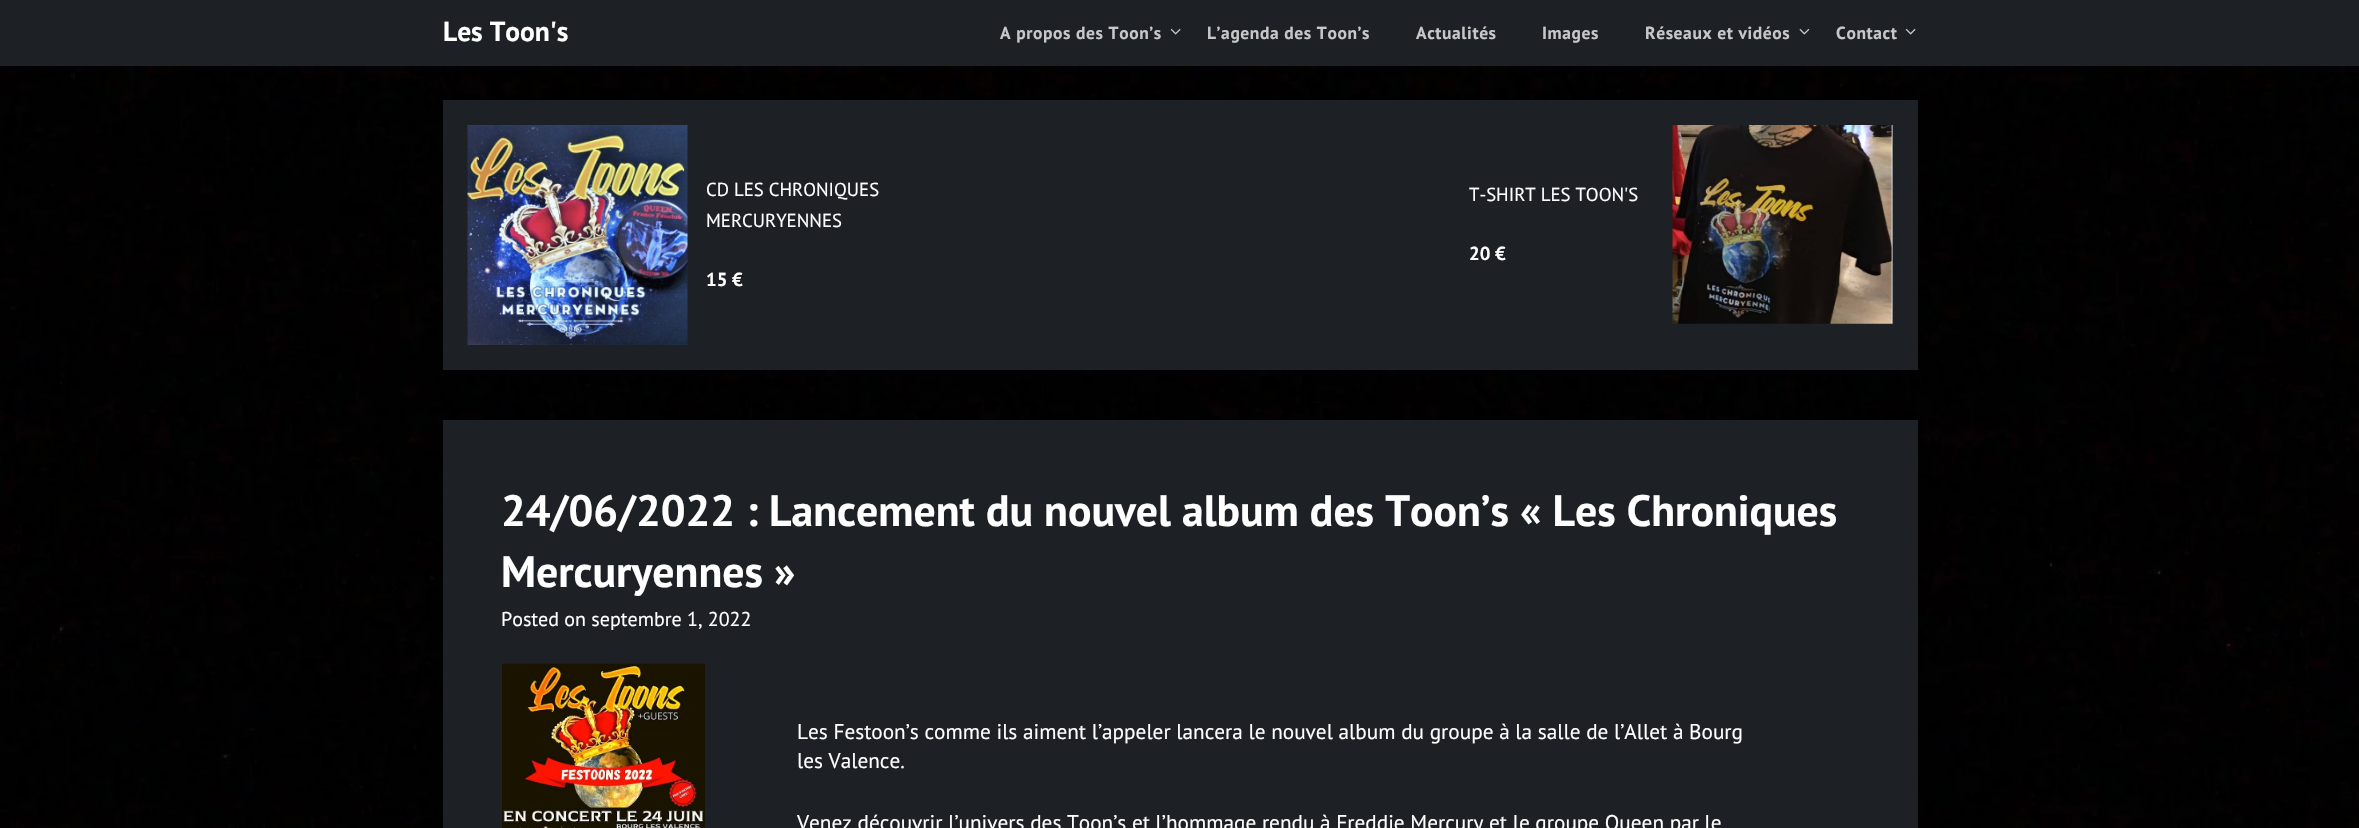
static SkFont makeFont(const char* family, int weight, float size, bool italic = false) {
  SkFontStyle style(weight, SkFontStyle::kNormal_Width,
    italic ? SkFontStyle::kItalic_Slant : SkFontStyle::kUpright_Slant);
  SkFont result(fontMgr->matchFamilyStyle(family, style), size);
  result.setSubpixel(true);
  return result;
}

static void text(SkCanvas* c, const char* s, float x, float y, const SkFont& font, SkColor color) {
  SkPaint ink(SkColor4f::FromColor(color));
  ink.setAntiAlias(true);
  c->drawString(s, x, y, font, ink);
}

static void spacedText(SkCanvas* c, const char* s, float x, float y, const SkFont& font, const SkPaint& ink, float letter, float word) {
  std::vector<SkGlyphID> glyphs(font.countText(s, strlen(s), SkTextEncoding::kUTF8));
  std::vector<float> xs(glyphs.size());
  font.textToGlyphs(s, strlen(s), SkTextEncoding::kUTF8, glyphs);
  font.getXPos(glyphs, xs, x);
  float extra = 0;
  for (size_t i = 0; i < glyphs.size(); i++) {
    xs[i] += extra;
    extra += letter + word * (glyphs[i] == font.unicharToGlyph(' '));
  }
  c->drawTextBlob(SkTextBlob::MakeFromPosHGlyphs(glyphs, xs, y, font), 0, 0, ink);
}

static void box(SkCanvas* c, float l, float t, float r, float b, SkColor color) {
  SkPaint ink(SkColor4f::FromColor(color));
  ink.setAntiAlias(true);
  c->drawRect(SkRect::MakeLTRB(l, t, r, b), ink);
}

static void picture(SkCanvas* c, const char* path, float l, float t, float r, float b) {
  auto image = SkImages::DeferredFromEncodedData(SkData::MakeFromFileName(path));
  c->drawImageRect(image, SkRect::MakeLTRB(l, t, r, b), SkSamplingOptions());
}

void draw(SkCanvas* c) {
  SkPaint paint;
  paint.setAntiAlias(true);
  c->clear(0xffffffff);
  picture(c, "img_01.png", 0, 66, 2359, 828);
  box(c, 0, 0, 2359, 66, 0xff1d2025);
  SkFont face1 = makeFont("PT Sans", 700, 27.5f);
  text(c, "Les Toon's", 443, 41, face1, 0xffffffff);
  SkFont face2 = makeFont("PT Sans", 700, 17.5f);
  paint.setColor(0xffc7c7c7);
  spacedText(c, "A propos des Toon’s", 1000, 39, face2, paint, 0.6f, 0);
  picture(c, "img_02.png", 1170, 28, 1181, 35);
  spacedText(c, "L’agenda des Toon’s", 1207, 39, face2, paint, 0.6f, 0);
  spacedText(c, "Actualités", 1416, 39, face2, paint, 0.6f, 0);
  spacedText(c, "Images", 1542, 39, face2, paint, 0.6f, 0);
  spacedText(c, "Réseaux et vidéos", 1645, 39, face2, paint, 0.6f, 0);
  picture(c, "img_03.png", 1799, 28, 1810, 35);
  spacedText(c, "Contact", 1836, 39, face2, paint, 0.6f, 0);
  picture(c, "img_02.png", 1905, 28, 1916, 35);
  box(c, 443, 100, 1918, 370, 0xff1d2025);
  picture(c, "img_04.png", 467, 125, 688, 345);
  SkFont face3 = makeFont("PT Sans", 400, 18.75f);
  text(c, "CD LES CHRONIQUES", 706, 196, face3, 0xffffffff);
  text(c, "MERCURYENNES", 706, 227, face3, 0xffffffff);
  SkFont face4 = makeFont("PT Sans", 700, 18.75f);
  text(c, "15 €", 706, 286, face4, 0xffffffff);
  text(c, "T-SHIRT LES TOON'S", 1469, 201, face3, 0xffffffff);
  text(c, "20 €", 1469, 260, face4, 0xffffffff);
  picture(c, "img_05.png", 1672, 125, 1893, 324);
  box(c, 443, 420, 1918, 828, 0xff1d2025);
  SkFont face5 = makeFont("PT Sans", 700, 43.75f);
  text(c, "24/06/2022 : Lancement du nouvel album des Toon’s « Les Chroniques", 501, 526, face5, 0xffffffff);
  text(c, "Mercuryennes »", 501, 587, face5, 0xffffffff);
  SkFont face6 = makeFont("PT Sans", 400, 20);
  text(c, "Posted on septembre 1, 2022", 501, 626, face6, 0xffffffff);
  picture(c, "img_06.png", 501, 663, 705, 828);
  SkFont face7 = makeFont("PT Sans", 400, 21.25f);
  text(c, "Les Festoon’s comme ils aiment l’appeler lancera le nouvel album du groupe à la salle de l’Allet à Bourg", 797, 739, face7, 0xffffffff);
  text(c, "les Valence.", 797, 768, face7, 0xffffffff);
  text(c, "Venez découvrir l’univers des Toon’s et l’hommage rendu à Freddie Mercury et le groupe Queen par le", 797, 830, face7, 0xffffffff);
}
